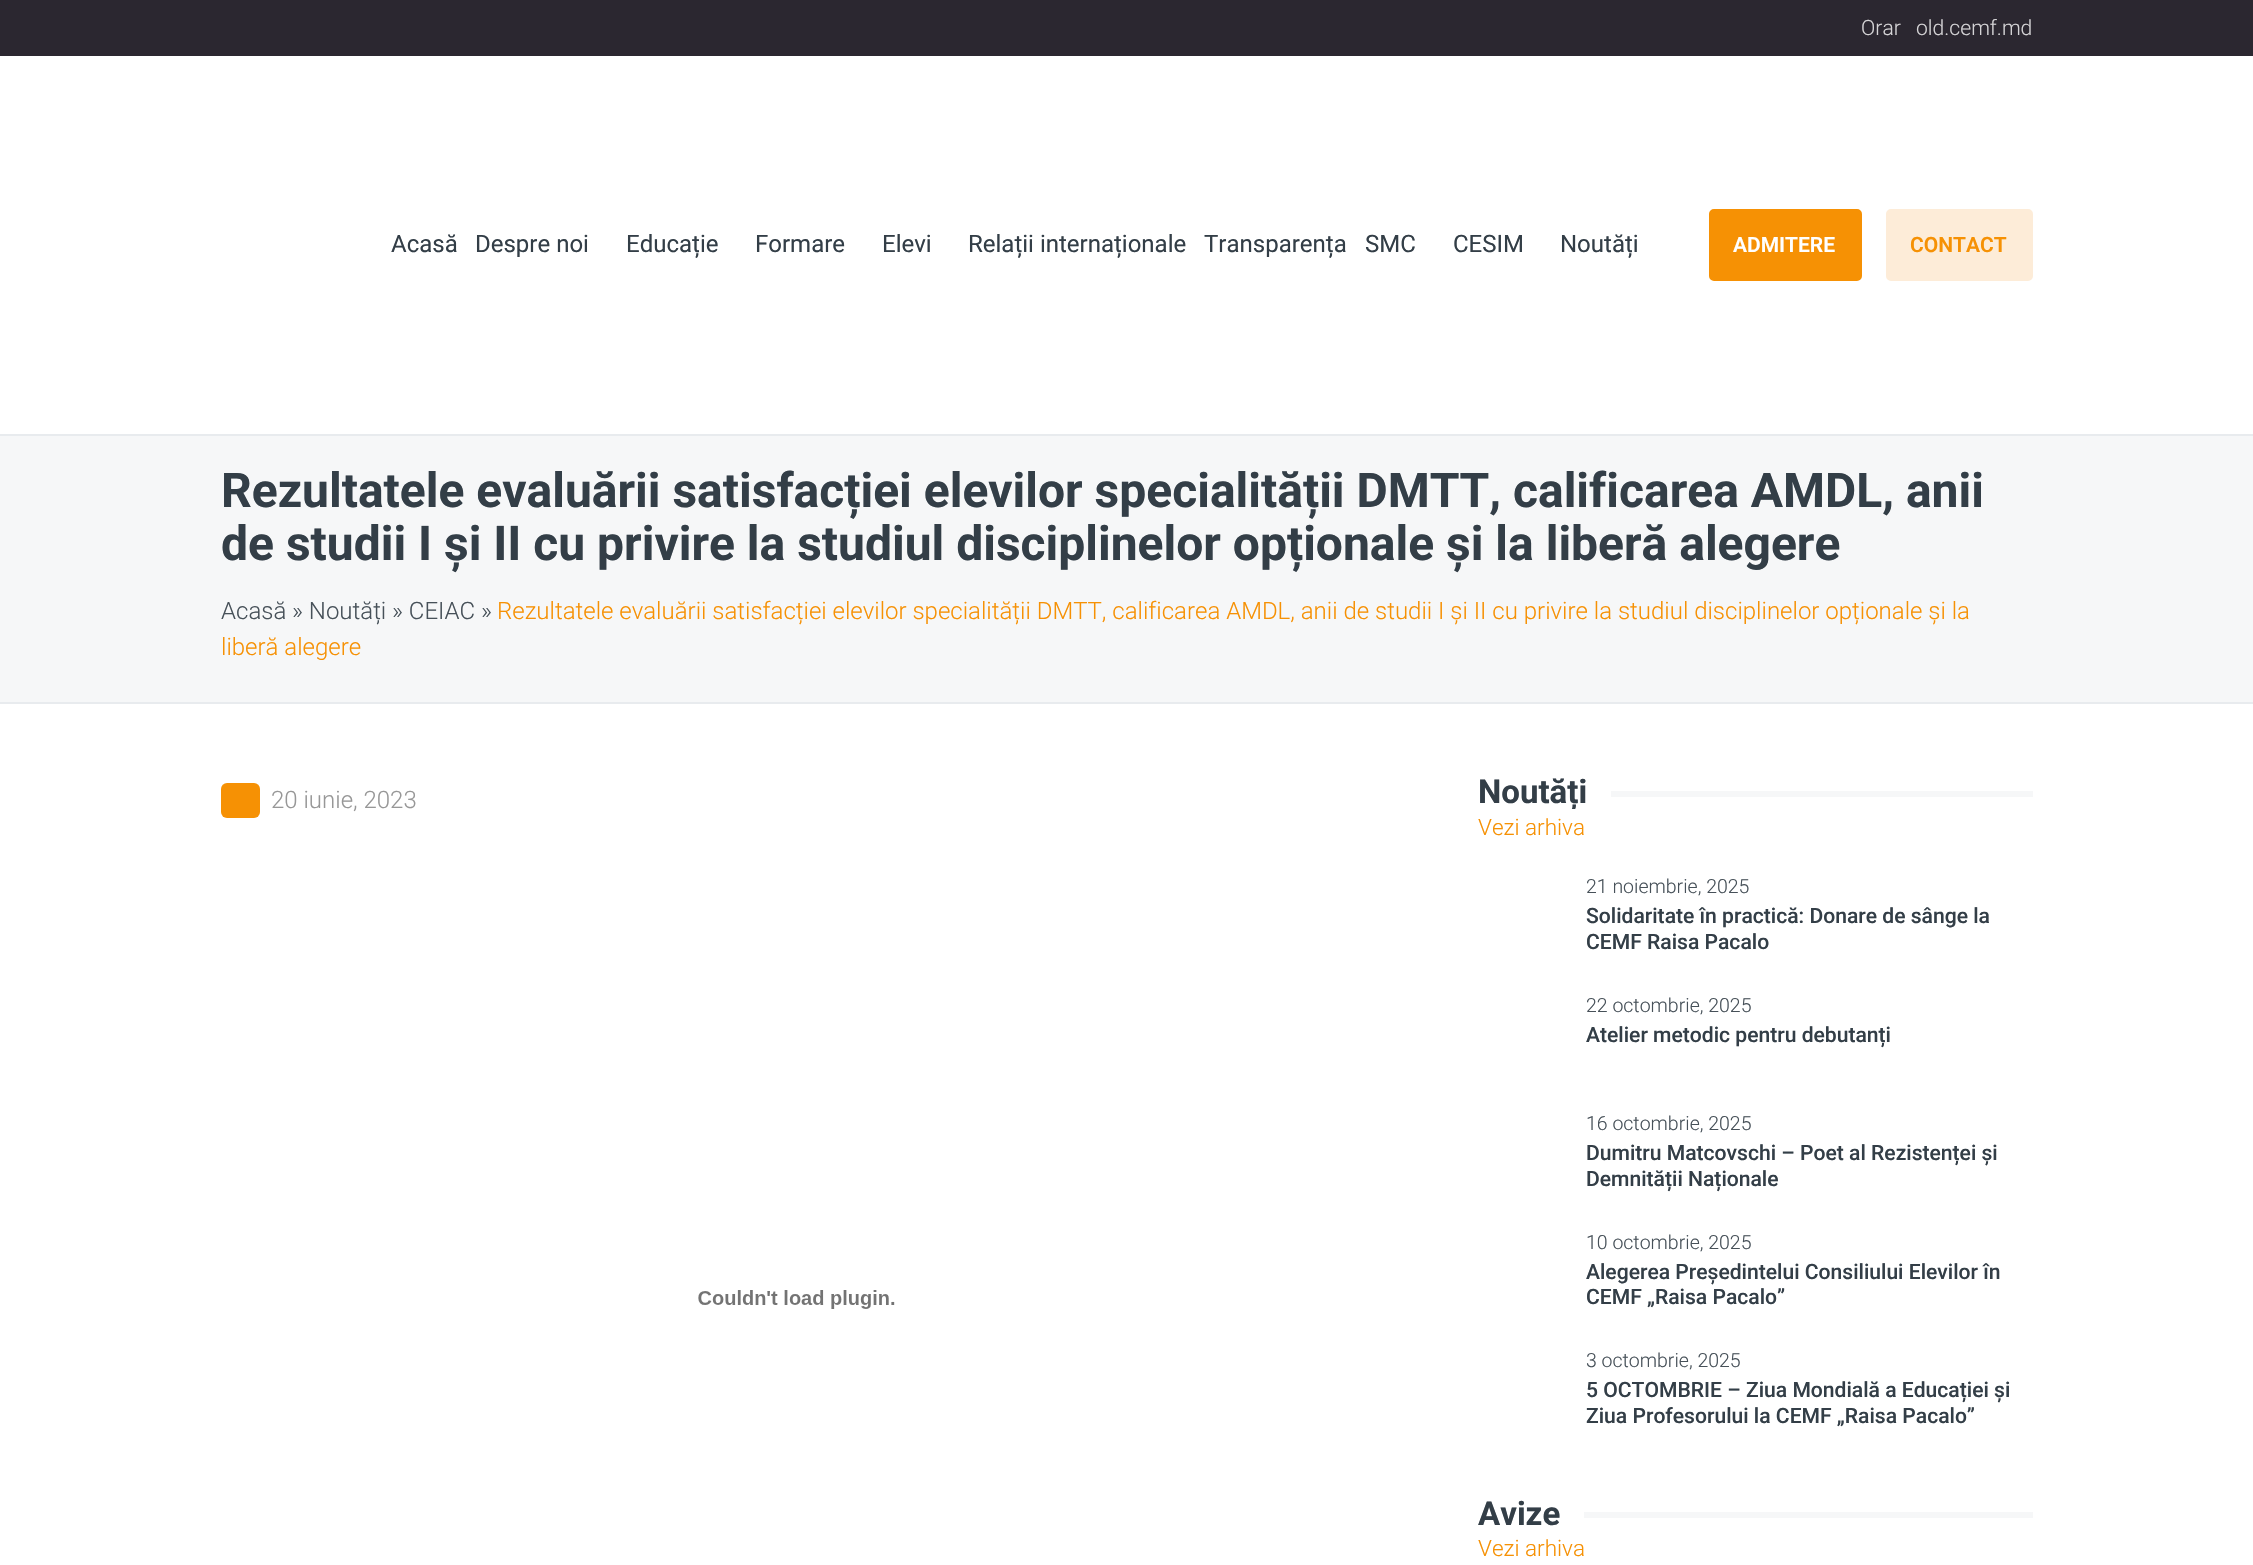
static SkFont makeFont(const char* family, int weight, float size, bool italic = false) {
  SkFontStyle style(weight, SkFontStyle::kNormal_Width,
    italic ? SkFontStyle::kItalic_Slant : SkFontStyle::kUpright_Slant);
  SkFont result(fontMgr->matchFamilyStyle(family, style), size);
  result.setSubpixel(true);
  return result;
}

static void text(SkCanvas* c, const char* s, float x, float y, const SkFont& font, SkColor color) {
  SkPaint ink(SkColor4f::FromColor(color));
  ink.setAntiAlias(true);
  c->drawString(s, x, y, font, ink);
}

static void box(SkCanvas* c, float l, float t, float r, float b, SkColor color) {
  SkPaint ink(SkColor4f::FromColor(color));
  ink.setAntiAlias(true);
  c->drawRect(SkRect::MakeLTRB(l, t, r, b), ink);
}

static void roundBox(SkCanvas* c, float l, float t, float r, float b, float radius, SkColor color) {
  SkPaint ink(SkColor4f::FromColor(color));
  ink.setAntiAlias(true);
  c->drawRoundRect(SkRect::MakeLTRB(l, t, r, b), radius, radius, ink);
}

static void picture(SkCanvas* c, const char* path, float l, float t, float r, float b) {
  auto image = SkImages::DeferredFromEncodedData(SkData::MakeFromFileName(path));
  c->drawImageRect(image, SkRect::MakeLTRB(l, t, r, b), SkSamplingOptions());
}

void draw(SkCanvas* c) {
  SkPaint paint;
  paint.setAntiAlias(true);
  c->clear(0xffffffff);
  box(c, 0, 434, 2253, 436, 0xffe8ebee);
  box(c, 0, 0, 2253, 56, 0xff2b2730);
  SkFont face1 = makeFont("Roboto", 300, 21.1f);
  text(c, "Orar", 1861, 35, face1, 0xffd5d4d6);
  text(c, "old.cemf.md", 1916, 35, face1, 0xffd5d4d6);
  SkFont face2 = makeFont("Roboto", 400, 24);
  text(c, "Acasă", 391, 252, face2, 0xff333e47);
  text(c, "Despre noi", 475, 252, face2, 0xff333e47);
  text(c, "Educație", 626, 252, face2, 0xff333e47);
  text(c, "Formare", 755, 252, face2, 0xff333e47);
  text(c, "Elevi", 882, 252, face2, 0xff333e47);
  text(c, "Relații internaționale", 968, 252, face2, 0xff333e47);
  text(c, "Transparența", 1204, 252, face2, 0xff333e47);
  text(c, "SMC", 1365, 252, face2, 0xff333e47);
  text(c, "CESIM", 1453, 252, face2, 0xff333e47);
  text(c, "Noutăți", 1560, 252, face2, 0xff333e47);
  paint.setColor(0xfff69104);
  c->drawRoundRect(SkRect::MakeLTRB(1710, 210, 1861, 280), 4, 4, paint);
  paint.setStyle(SkPaint::kStroke_Style);
  paint.setStrokeWidth(2);
  c->drawRoundRect(SkRect::MakeLTRB(1710, 210, 1861, 280), 4, 4, paint);
  SkFont face3 = makeFont("Roboto", 600, 21);
  text(c, "ADMITERE", 1733, 252, face3, 0xffffffff);
  paint.setStyle(SkPaint::kFill_Style);
  paint.setColor(0xfffdecd8);
  c->drawRoundRect(SkRect::MakeLTRB(1887, 210, 2032, 280), 4, 4, paint);
  paint.setStyle(SkPaint::kStroke_Style);
  c->drawRoundRect(SkRect::MakeLTRB(1887, 210, 2032, 280), 4, 4, paint);
  text(c, "CONTACT", 1910, 252, face3, 0xfff69104);
  box(c, 0, 436, 2253, 702, 0xfff6f7f8);
  box(c, 0, 702, 2253, 704, 0xffe8ebee);
  SkFont face4 = makeFont("Roboto", 700, 48);
  text(c, "Rezultatele evaluării satisfacției elevilor specialității DMTT, calificarea AMDL, anii", 221, 507, face4, 0xff333e47);
  text(c, "de studii I și II cu privire la studiul disciplinelor opționale și la liberă alegere", 221, 560, face4, 0xff333e47);
  SkFont face5 = makeFont("Roboto", 300, 24);
  text(c, "Acasă » Noutăți » CEIAC »", 221, 619, face5, 0xff475159);
  text(c, "Rezultatele evaluării satisfacției elevilor specialității DMTT, calificarea AMDL, anii de studii I și II cu privire la studiul disciplinelor opționale și la", 497, 619, face5, 0xfff69104);
  text(c, "liberă alegere", 221, 655, face5, 0xfff69104);
  roundBox(c, 221, 783, 260, 818, 6, 0xfff69104);
  text(c, "20 iunie, 2023", 271, 808, face5, 0xff979797);
  picture(c, "img_01.png", 698, 1290, 895, 1309);
  c->save();
  c->clipRect(SkRect::MakeLTRB(1478, 776, 2033, 809));
  SkFont face6 = makeFont("Roboto", 700, 33);
  text(c, "Noutăți", 1478, 803, face6, 0xff333e47);
  c->restore();
  box(c, 1611, 791, 2033, 797, 0xfff6f7f8);
  SkFont face7 = makeFont("Roboto", 300, 22.5f);
  text(c, "Vezi arhiva", 1478, 835, face7, 0xfff69104);
  SkFont face8 = makeFont("Roboto", 300, 19.5f);
  text(c, "21 noiembrie, 2025", 1586, 893, face8, 0xff475159);
  SkFont face9 = makeFont("Roboto", 500, 21.1f);
  text(c, "Solidaritate în practică: Donare de sânge la", 1586, 923, face9, 0xff333e47);
  text(c, "CEMF Raisa Pacalo", 1586, 949, face9, 0xff333e47);
  text(c, "22 octombrie, 2025", 1586, 1012, face8, 0xff475159);
  text(c, "Atelier metodic pentru debutanți", 1586, 1042, face9, 0xff333e47);
  text(c, "16 octombrie, 2025", 1586, 1130, face8, 0xff475159);
  text(c, "Dumitru Matcovschi – Poet al Rezistenței și", 1586, 1160, face9, 0xff333e47);
  text(c, "Demnității Naționale", 1586, 1186, face9, 0xff333e47);
  text(c, "10 octombrie, 2025", 1586, 1249, face8, 0xff475159);
  text(c, "Alegerea Președintelui Consiliului Elevilor în", 1586, 1279, face9, 0xff333e47);
  text(c, "CEMF „Raisa Pacalo”", 1586, 1304, face9, 0xff333e47);
  text(c, "3 octombrie, 2025", 1586, 1367, face8, 0xff475159);
  text(c, "5 OCTOMBRIE – Ziua Mondială a Educației și", 1586, 1397, face9, 0xff333e47);
  text(c, "Ziua Profesorului la CEMF „Raisa Pacalo”", 1586, 1423, face9, 0xff333e47);
  text(c, "Avize", 1478, 1525, face6, 0xff333e47);
  box(c, 1584, 1512, 2033, 1518, 0xfff6f7f8);
  text(c, "Vezi arhiva", 1478, 1556, face7, 0xfff69104);
}
